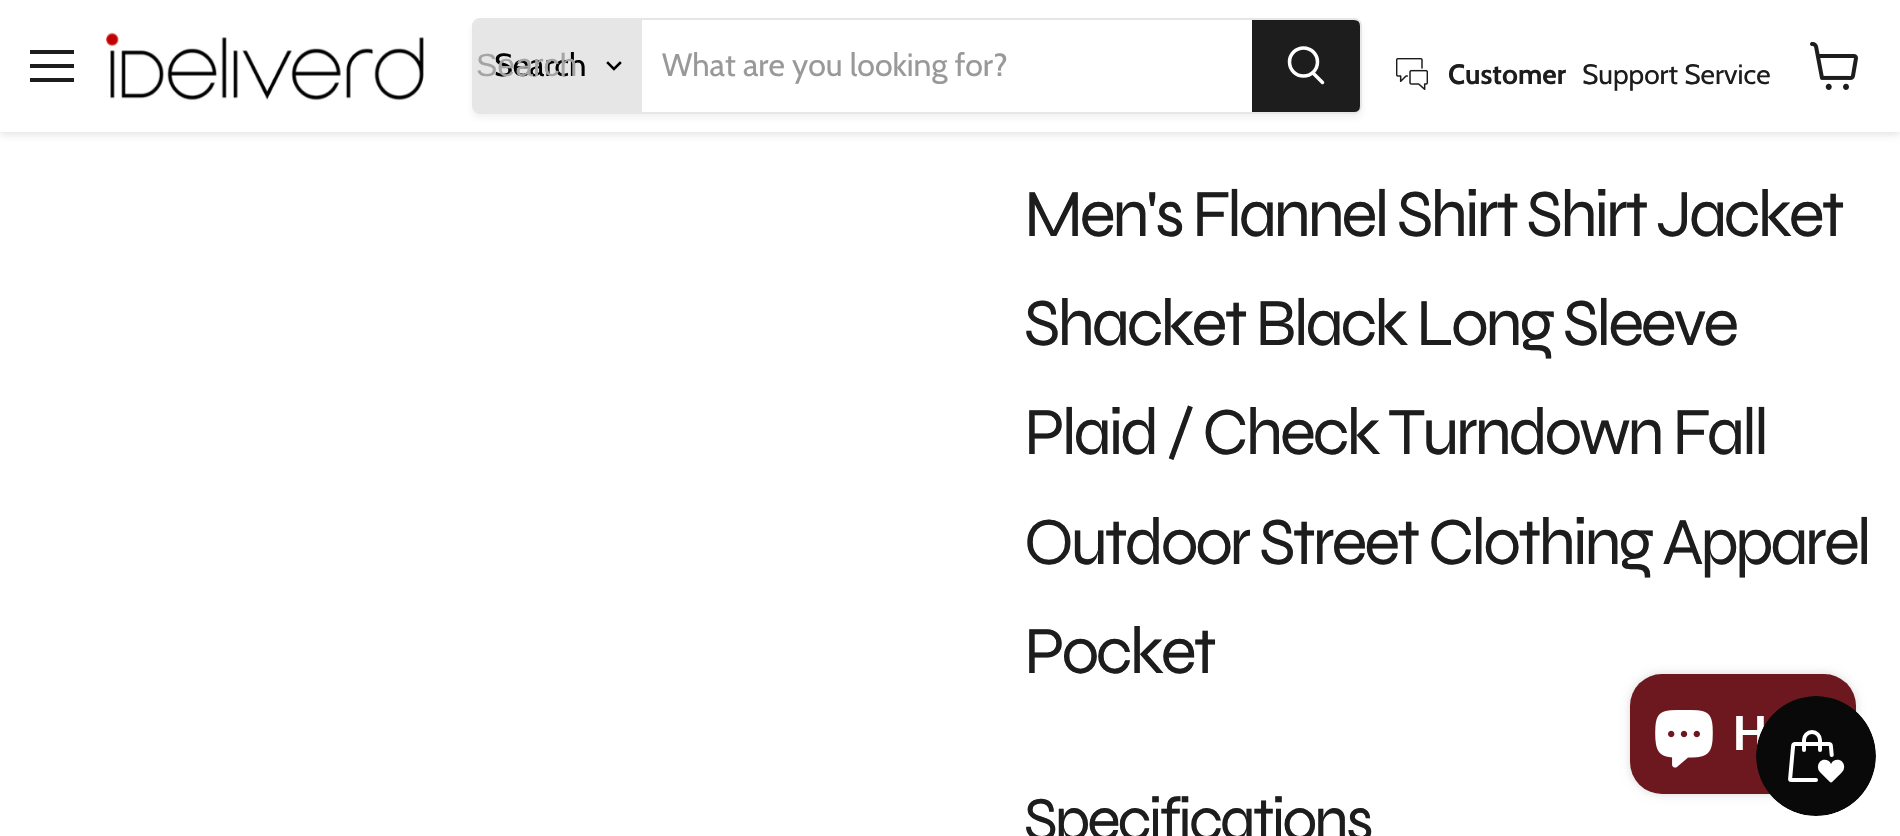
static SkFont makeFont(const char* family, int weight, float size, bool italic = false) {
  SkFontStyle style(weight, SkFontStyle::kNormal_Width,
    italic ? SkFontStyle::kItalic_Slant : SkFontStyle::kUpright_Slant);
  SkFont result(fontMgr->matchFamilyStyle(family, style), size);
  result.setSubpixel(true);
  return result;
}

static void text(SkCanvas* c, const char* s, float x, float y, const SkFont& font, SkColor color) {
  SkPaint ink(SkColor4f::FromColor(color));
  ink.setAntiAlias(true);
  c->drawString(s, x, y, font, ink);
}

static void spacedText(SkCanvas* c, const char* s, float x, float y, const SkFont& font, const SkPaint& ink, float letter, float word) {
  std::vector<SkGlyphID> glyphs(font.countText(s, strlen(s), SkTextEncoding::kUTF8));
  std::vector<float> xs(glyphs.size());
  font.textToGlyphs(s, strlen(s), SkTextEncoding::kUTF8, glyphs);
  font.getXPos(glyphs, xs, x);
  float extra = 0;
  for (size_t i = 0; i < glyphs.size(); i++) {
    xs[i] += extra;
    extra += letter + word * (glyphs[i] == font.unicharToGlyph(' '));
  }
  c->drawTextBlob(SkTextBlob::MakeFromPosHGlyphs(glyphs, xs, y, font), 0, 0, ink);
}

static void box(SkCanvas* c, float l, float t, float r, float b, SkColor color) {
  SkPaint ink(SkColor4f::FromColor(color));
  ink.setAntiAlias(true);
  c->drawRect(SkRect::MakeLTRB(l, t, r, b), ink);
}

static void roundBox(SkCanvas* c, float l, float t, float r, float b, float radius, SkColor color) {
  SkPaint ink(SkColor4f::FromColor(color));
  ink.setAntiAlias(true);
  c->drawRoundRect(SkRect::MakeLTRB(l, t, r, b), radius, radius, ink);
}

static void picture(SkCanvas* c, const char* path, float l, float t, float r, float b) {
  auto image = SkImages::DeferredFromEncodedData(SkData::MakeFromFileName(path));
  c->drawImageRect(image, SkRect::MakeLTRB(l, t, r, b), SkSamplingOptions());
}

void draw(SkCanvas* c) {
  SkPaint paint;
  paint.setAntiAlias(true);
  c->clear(0xffffffff);
  paint.setColor(0x40808080);
  paint.setMaskFilter(SkMaskFilter::MakeBlur(kNormal_SkBlurStyle, 4));
  c->drawRect(SkRect::MakeLTRB(0, 2, 1900, 134), paint);
  paint.setMaskFilter(nullptr);
  box(c, 0, 0, 1900, 132, 0xffffffff);
  box(c, 30, 50, 74, 54, 0xff1d1d1d);
  box(c, 30, 64, 74, 68, 0xff1d1d1d);
  box(c, 30, 78, 74, 82, 0xff1d1d1d);
  picture(c, "img_01.png", 106, 31, 424, 101);
  c->save();
  c->clipPath(SkPathBuilder(SkPathFillType::kEvenOdd).moveTo(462, 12).lineTo(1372, 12).lineTo(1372, 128).lineTo(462, 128).close().moveTo(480, 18).lineTo(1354, 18).cubicTo(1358.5f, 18, 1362, 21.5f, 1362, 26).lineTo(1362, 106).cubicTo(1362, 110.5f, 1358.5f, 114, 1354, 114).lineTo(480, 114).cubicTo(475.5f, 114, 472, 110.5f, 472, 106).lineTo(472, 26).cubicTo(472, 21.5f, 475.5f, 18, 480, 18).close().detach(), true);
  paint.setColor(0x1c808080);
  paint.setMaskFilter(SkMaskFilter::MakeBlur(kNormal_SkBlurStyle, 3));
  c->drawRoundRect(SkRect::MakeLTRB(472, 22, 1362, 118), 8, 8, paint);
  paint.setMaskFilter(nullptr);
  c->restore();
  paint.setStyle(SkPaint::kStroke_Style);
  paint.setStrokeWidth(2);
  paint.setColor(0x33808080);
  c->drawRoundRect(SkRect::MakeLTRB(473, 19, 1361, 113), 7, 7, paint);
  paint.setStyle(SkPaint::kFill_Style);
  paint.setColor(0xffe6e6e6);
  c->drawPath(SkPathBuilder().moveTo(480, 20).lineTo(642, 20).lineTo(642, 112).lineTo(480, 112).cubicTo(476.5f, 112, 474, 109.5f, 474, 106).lineTo(474, 26).cubicTo(474, 22.5f, 476.5f, 20, 480, 20).close().detach(), paint);
  SkFont face1 = makeFont("Cabin", 400, 32);
  text(c, "Search", 494, 76, face1, 0xff000000);
  SkFont face2 = makeFont("Liberation Sans", 400, 32);
  text(c, "Search", 476, 76, face2, 0xffa4a4a4);
  paint.setStyle(SkPaint::kStroke_Style);
  paint.setStrokeWidth(2.5f);
  paint.setStrokeCap(SkPaint::kSquare_Cap);
  paint.setColor(0xff000000);
  c->drawPath(SkPathBuilder().moveTo(614, 69).lineTo(620, 63).moveTo(614, 69).lineTo(608, 63).detach(), paint);
  text(c, "What are you looking for?", 662, 76, face1, 0xff999999);
  paint.setStyle(SkPaint::kFill_Style);
  paint.setColor(0xff1d1d1d);
  c->drawPath(SkPathBuilder().moveTo(1253, 21).lineTo(1354, 21).cubicTo(1357, 21, 1359, 23, 1359, 26).lineTo(1359, 106).cubicTo(1359, 109, 1357, 111, 1354, 111).lineTo(1253, 111).close().detach(), paint);
  paint.setStyle(SkPaint::kStroke_Style);
  paint.setStrokeWidth(2);
  paint.setStrokeCap(SkPaint::kButt_Cap);
  c->drawPath(SkPathBuilder().moveTo(1253, 21).lineTo(1354, 21).cubicTo(1357, 21, 1359, 23, 1359, 26).lineTo(1359, 106).cubicTo(1359, 109, 1357, 111, 1354, 111).lineTo(1253, 111).close().detach(), paint);
  paint.setStrokeWidth(3.5f);
  paint.setStrokeCap(SkPaint::kRound_Cap);
  paint.setColor(0xffffffff);
  c->drawPath(SkPathBuilder().moveTo(1322.5f, 82.5f).lineTo(1313, 73).detach(), paint);
  paint.setStrokeCap(SkPaint::kButt_Cap);
  c->drawCircle(1303.5f, 62, 14, paint);
  picture(c, "img_02.png", 1396, 58, 1428, 90);
  SkFont face3 = makeFont("Cabin", 700, 28);
  text(c, "Customer", 1448, 84, face3, 0xff1d1d1d);
  SkFont face4 = makeFont("Cabin", 400, 28);
  text(c, "Support Service", 1582, 84, face4, 0xff1d1d1d);
  picture(c, "img_03.png", 1810, 42, 1858, 90);
  SkFont face5 = makeFont("Syne", 400, 67.25f);
  paint.setStyle(SkPaint::kFill_Style);
  paint.setColor(0xff1d1d1d);
  spacedText(c, "Men's Flannel Shirt Shirt Jacket", 1024, 236, face5, paint, -3.35f, 0);
  spacedText(c, "Shacket Black Long Sleeve", 1024, 345, face5, paint, -3.35f, 0);
  spacedText(c, "Plaid / Check Turndown Fall", 1024, 454, face5, paint, -3.35f, 0);
  spacedText(c, "Outdoor Street Clothing Apparel", 1024, 564, face5, paint, -3.35f, 0);
  spacedText(c, "Pocket", 1024, 673, face5, paint, -3.35f, 0);
  SkFont face6 = makeFont("Syne", 400, 62.5f);
  spacedText(c, "Specifications", 1024, 840, face6, paint, -3.1f, 0);
  paint.setColor(0x26000000);
  paint.setMaskFilter(SkMaskFilter::MakeBlur(kNormal_SkBlurStyle, 5));
  c->drawRoundRect(SkRect::MakeLTRB(1630, 674, 1856, 794), 32, 32, paint);
  paint.setMaskFilter(nullptr);
  roundBox(c, 1630, 674, 1856, 794, 32, 0xff6c181e);
  picture(c, "img_04.png", 1655, 710, 1713, 768);
  SkFont face7 = makeFont("Roboto", 600, 48);
  text(c, "H", 1733, 750, face7, 0xffffffff);
  picture(c, "img_05.png", 1756, 696, 1876, 816);
}
